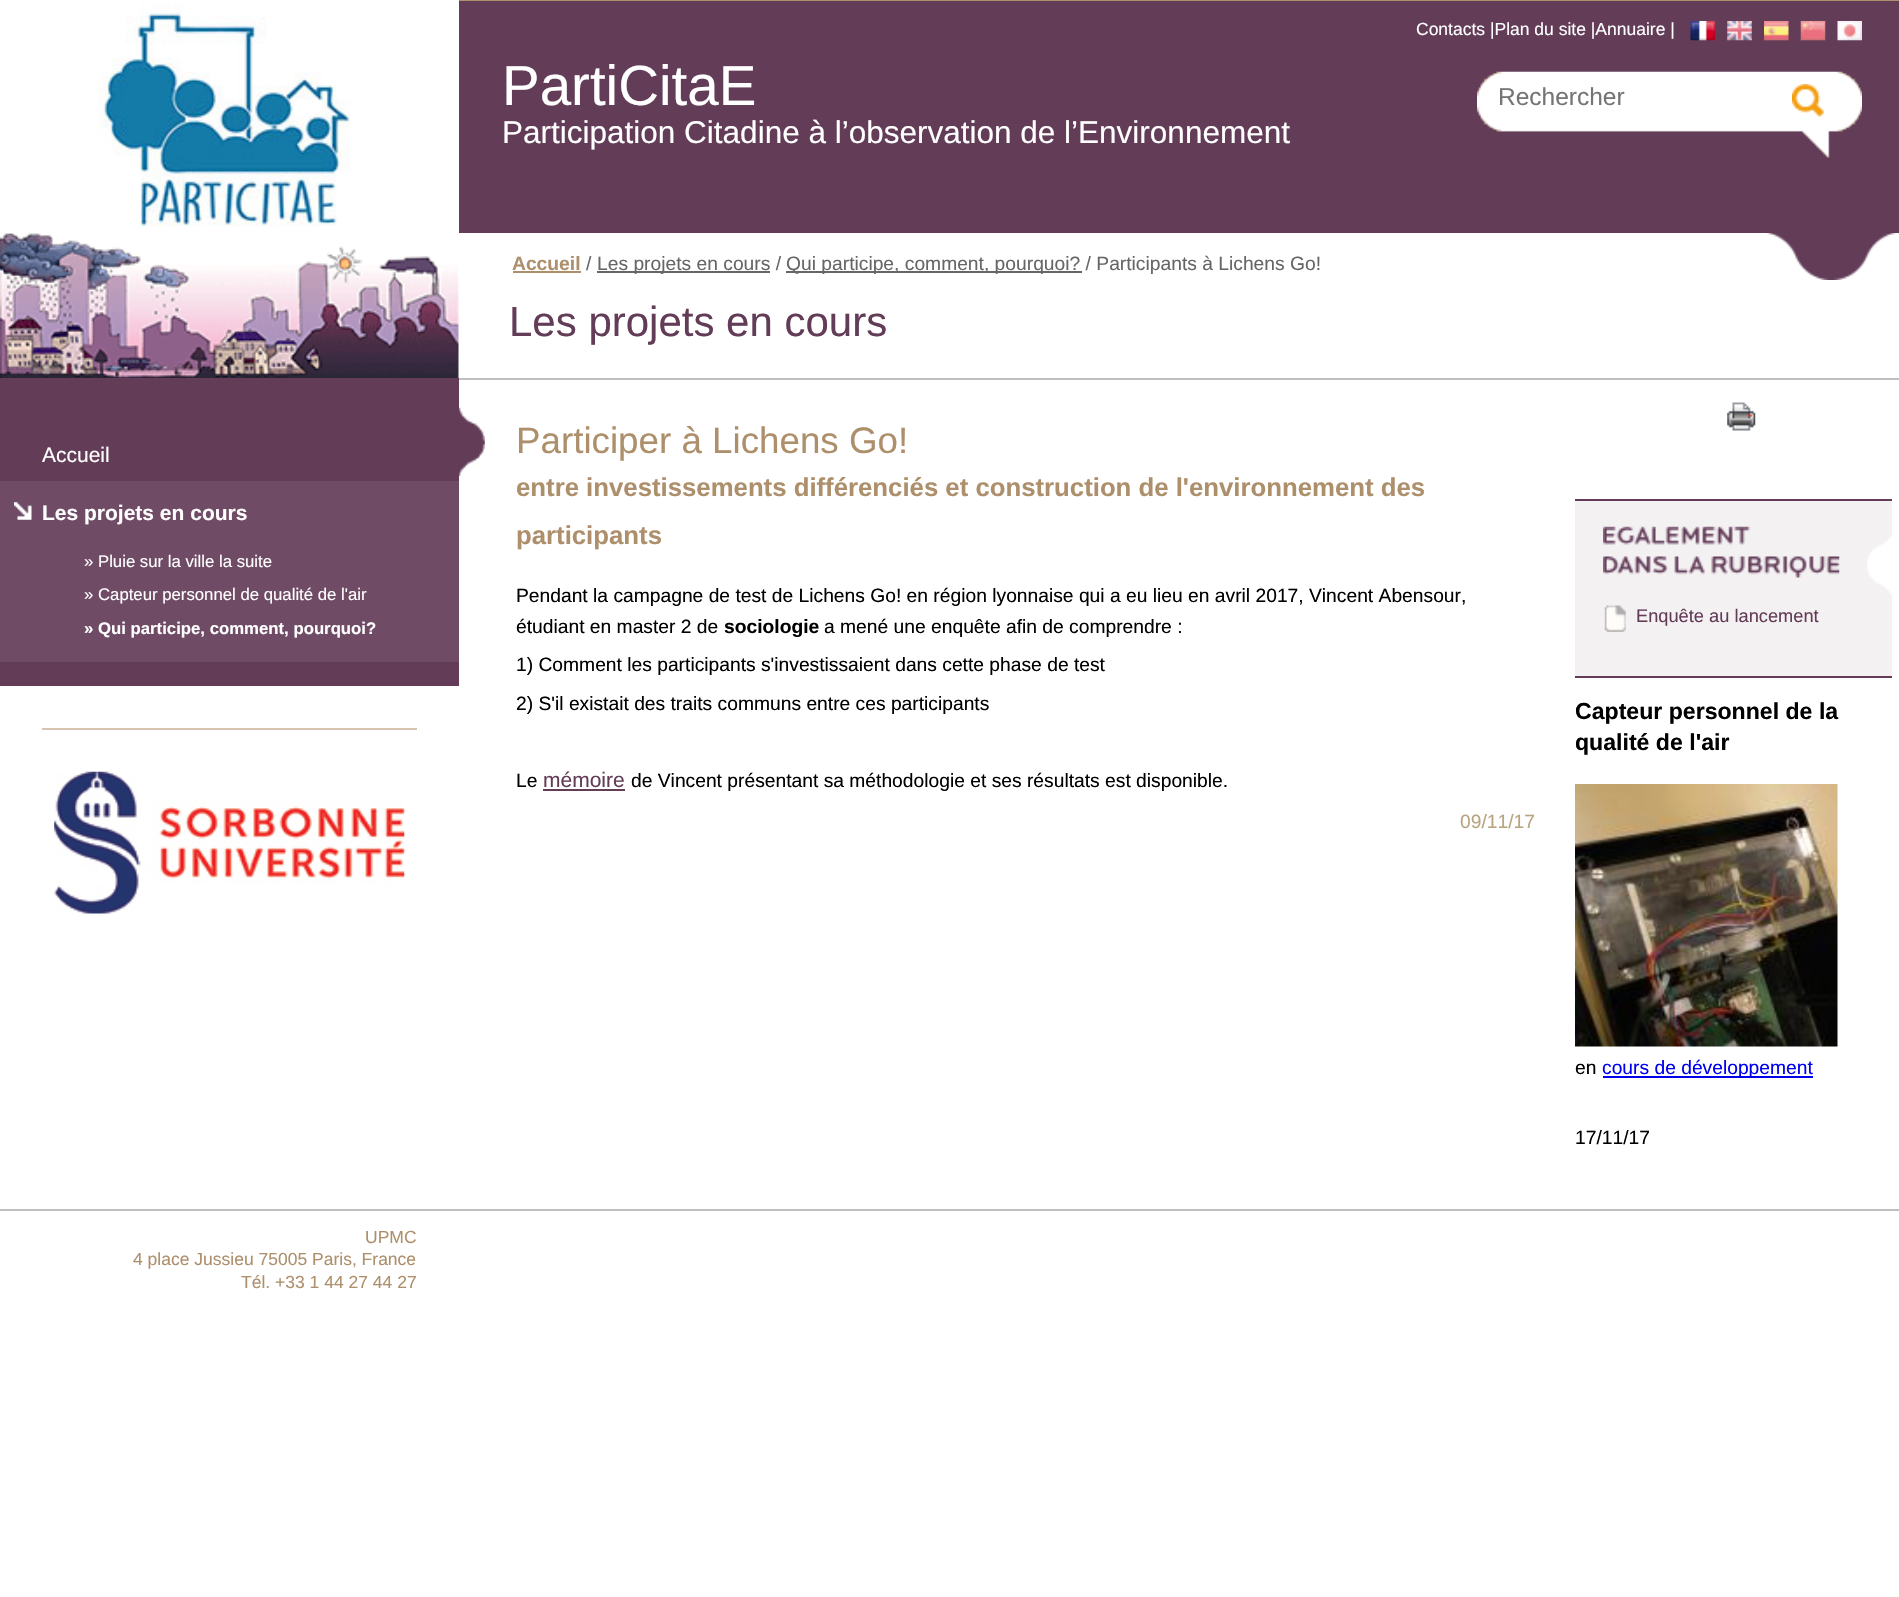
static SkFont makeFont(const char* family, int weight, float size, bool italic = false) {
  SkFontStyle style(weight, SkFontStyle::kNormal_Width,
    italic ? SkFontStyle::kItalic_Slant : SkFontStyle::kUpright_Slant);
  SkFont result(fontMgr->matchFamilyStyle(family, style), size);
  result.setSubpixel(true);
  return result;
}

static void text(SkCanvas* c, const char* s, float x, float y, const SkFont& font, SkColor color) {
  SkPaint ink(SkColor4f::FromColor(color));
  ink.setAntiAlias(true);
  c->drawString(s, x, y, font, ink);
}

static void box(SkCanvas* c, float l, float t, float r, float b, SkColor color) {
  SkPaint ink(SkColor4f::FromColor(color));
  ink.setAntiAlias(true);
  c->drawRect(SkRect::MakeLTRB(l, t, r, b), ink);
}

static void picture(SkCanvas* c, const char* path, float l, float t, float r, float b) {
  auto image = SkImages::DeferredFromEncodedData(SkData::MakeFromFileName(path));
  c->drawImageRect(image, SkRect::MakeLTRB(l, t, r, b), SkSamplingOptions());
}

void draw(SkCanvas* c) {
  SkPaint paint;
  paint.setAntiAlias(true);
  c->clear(0xffffffff);
  picture(c, "img_01.png", 98, 4, 351, 227);
  picture(c, "img_02.png", 0, 233, 459, 378);
  box(c, 0, 378, 459, 686, 0xff633d58);
  SkFont face1 = makeFont("Liberation Sans", 400, 21);
  text(c, "Accueil", 42, 462, face1, 0xffffffff);
  box(c, 0, 481, 459, 662, 0xff6f4b66);
  picture(c, "img_03.png", 14, 502, 32, 520);
  SkFont face2 = makeFont("Liberation Sans", 700, 21);
  text(c, "Les projets en cours", 42, 520, face2, 0xffffffff);
  SkFont face3 = makeFont("Liberation Sans", 400, 16.75f);
  text(c, "» Pluie sur la ville la suite", 84, 567, face3, 0xffffffff);
  text(c, "» Capteur personnel de qualité de l'air", 84, 600, face3, 0xffffffff);
  SkFont face4 = makeFont("Liberation Sans", 700, 16.75f);
  text(c, "» Qui participe, comment, pourquoi?", 84, 634, face4, 0xffffffff);
  box(c, 42, 728, 417, 730, 0xffd7c4b0);
  picture(c, "img_04.png", 54, 771, 405, 914);
  box(c, 459, 0, 1899, 1, 0xffad8f6b);
  box(c, 459, 1, 1899, 233, 0xff633d58);
  picture(c, "img_05.png", 1762, 233, 1899, 280);
  SkFont face5 = makeFont("Liberation Sans", 400, 17.5f);
  text(c, "Contacts |Plan du site |Annuaire |", 1416, 35, face5, 0xffffffff);
  picture(c, "img_06.png", 1690, 21, 1715, 41);
  picture(c, "img_07.png", 1727, 21, 1752, 41);
  picture(c, "img_08.png", 1764, 21, 1789, 41);
  picture(c, "img_09.png", 1800, 21, 1826, 41);
  picture(c, "img_10.png", 1837, 21, 1862, 41);
  SkFont face6 = makeFont("Liberation Sans", 400, 56.5f);
  text(c, "PartiCitaE", 502, 105, face6, 0xffffffff);
  SkFont face7 = makeFont("Liberation Sans", 400, 31.5f);
  text(c, "Participation Citadine à l’observation de l’Environnement", 502, 143, face7, 0xffffffff);
  picture(c, "img_11.png", 1477, 71, 1862, 158);
  SkFont face8 = makeFont("Liberation Sans", 400, 24.5f);
  text(c, "Rechercher", 1498, 105, face8, 0xff757575);
  picture(c, "img_12.png", 1792, 84, 1825, 118);
  box(c, 459, 378, 1899, 380, 0xffbfbfbf);
  SkFont face9 = makeFont("Liberation Sans", 700, 19.25f);
  text(c, "Accueil", 512, 270, face9, 0xffad8f6b);
  box(c, 513, 271, 581, 273, 0xffae8f6c);
  SkFont face10 = makeFont("Liberation Sans", 400, 19.25f);
  text(c, "/", 586, 270, face10, 0xff666666);
  box(c, 597, 271, 770, 273, 0xff666666);
  text(c, "Les projets en cours /", 597, 270, face10, 0xff666666);
  box(c, 786, 271, 1082, 273, 0xff666666);
  text(c, "Qui participe, comment, pourquoi? / Participants à Lichens Go!", 786, 270, face10, 0xff666666);
  SkFont face11 = makeFont("Liberation Sans", 400, 42);
  text(c, "Les projets en cours", 509, 336, face11, 0xff633d58);
  picture(c, "img_13.png", 459, 407, 485, 476);
  SkFont face12 = makeFont("Liberation Sans", 400, 36.75f);
  text(c, "Participer à Lichens Go!", 516, 453, face12, 0xffad8f6b);
  SkFont face13 = makeFont("Liberation Sans", 700, 25.75f);
  text(c, "entre investissements différenciés et construction de l'environnement des", 516, 496, face13, 0xffad8f6b);
  text(c, "participants", 516, 544, face13, 0xffad8f6b);
  text(c, "Pendant la campagne de test de Lichens Go! en région lyonnaise qui a eu lieu en avril 2017, Vincent Abensour,", 516, 602, face10, 0xff000000);
  text(c, "étudiant en master 2 de", 516, 633, face10, 0xff000000);
  text(c, "sociologie", 724, 633, face9, 0xff000000);
  text(c, "a mené une enquête afin de comprendre :", 824, 633, face10, 0xff000000);
  text(c, "1) Comment les participants s'investissaient dans cette phase de test", 516, 671, face10, 0xff000000);
  text(c, "2) S'il existait des traits communs entre ces participants", 516, 710, face10, 0xff000000);
  text(c, "Le", 516, 787, face10, 0xff000000);
  text(c, "mémoire", 543, 787, face1, 0xff633d58);
  box(c, 543, 789, 625, 791, 0xff633d58);
  text(c, "de Vincent présentant sa méthodologie et ses résultats est disponible.", 631, 787, face10, 0xff000000);
  text(c, "09/11/17", 1460, 828, face10, 0xffb8a47f);
  picture(c, "img_14.png", 1727, 402, 1756, 431);
  box(c, 1575, 501, 1892, 676, 0xfff4f1f3);
  picture(c, "img_15.png", 1867, 535, 1892, 595);
  box(c, 1575, 499, 1892, 501, 0xff633d58);
  box(c, 1575, 676, 1892, 678, 0xff633d58);
  picture(c, "img_16.png", 1603, 526, 1840, 578);
  picture(c, "img_17.png", 1604, 605, 1626, 632);
  SkFont face14 = makeFont("Liberation Sans", 400, 18.25f);
  text(c, "Enquête au lancement", 1636, 622, face14, 0xff633d58);
  SkFont face15 = makeFont("Liberation Sans", 700, 23.1f);
  text(c, "Capteur personnel de la", 1575, 719, face15, 0xff000000);
  text(c, "qualité de l'air", 1575, 750, face15, 0xff000000);
  picture(c, "img_18.png", 1575, 784, 1838, 1047);
  text(c, "en", 1575, 1074, face10, 0xff000000);
  box(c, 1603, 1076, 1813, 1078, 0xff0000ee);
  text(c, "cours de développement", 1602, 1074, face10, 0xff0000ee);
  text(c, "17/11/17", 1575, 1144, face10, 0xff000000);
  box(c, 0, 1209, 1899, 1211, 0xffbfbfbf);
  text(c, "UPMC", 365, 1243, face5, 0xffad8f6b);
  text(c, "4 place Jussieu 75005 Paris, France", 133, 1265, face5, 0xffad8f6b);
  text(c, "Tél. +33 1 44 27 44 27", 241, 1288, face5, 0xffad8f6b);
}
